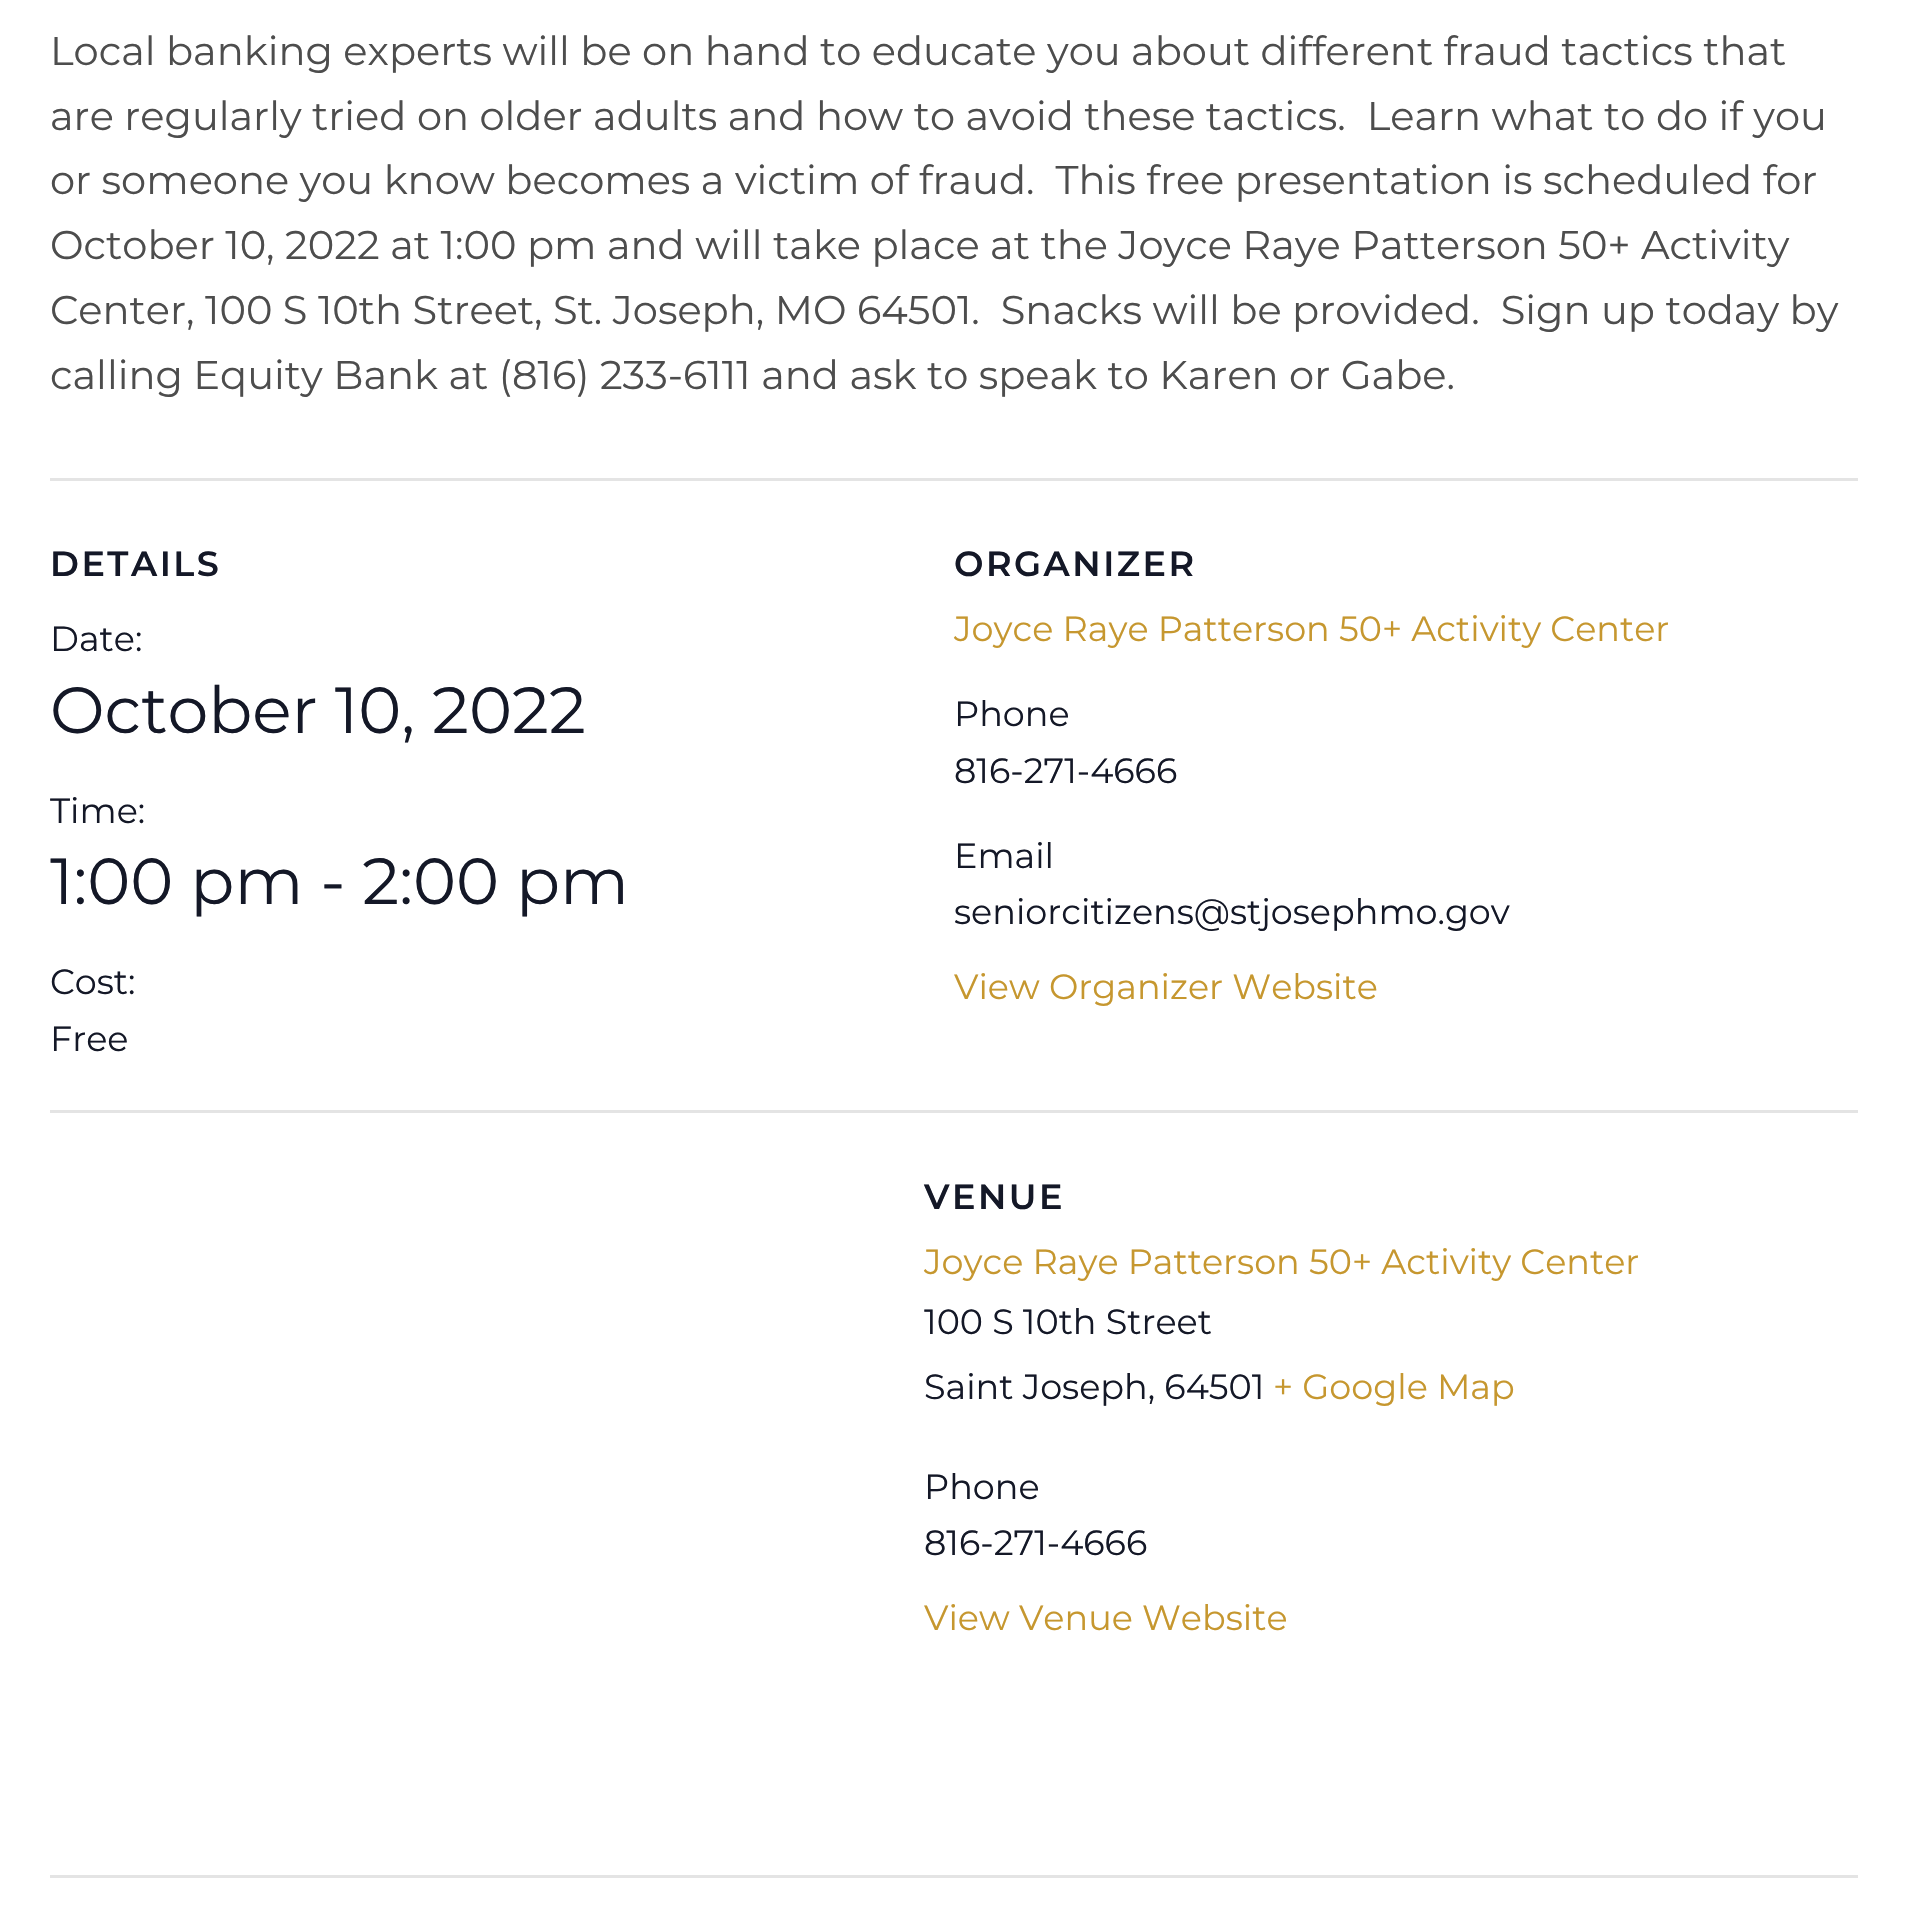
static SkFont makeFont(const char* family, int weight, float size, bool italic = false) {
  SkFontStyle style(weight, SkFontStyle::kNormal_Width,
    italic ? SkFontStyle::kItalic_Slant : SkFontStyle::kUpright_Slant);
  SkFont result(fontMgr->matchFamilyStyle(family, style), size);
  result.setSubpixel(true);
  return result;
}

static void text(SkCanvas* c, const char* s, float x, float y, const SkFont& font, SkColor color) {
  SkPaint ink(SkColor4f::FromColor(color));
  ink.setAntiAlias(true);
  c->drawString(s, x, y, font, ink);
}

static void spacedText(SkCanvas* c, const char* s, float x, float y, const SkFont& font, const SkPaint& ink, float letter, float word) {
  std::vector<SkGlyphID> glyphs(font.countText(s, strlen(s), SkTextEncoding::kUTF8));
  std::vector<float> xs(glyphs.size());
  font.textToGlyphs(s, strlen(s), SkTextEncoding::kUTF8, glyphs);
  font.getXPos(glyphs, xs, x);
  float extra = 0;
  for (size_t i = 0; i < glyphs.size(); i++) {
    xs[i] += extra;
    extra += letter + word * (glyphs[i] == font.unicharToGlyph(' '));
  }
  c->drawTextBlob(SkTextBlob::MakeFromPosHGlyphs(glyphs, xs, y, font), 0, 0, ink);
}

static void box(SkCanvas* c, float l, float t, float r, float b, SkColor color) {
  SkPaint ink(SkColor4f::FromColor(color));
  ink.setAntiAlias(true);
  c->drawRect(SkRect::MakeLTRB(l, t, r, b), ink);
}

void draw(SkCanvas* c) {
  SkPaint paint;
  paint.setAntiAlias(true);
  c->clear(0xffffffff);
  SkFont face1 = makeFont("Montserrat", 400, 40);
  text(c, "Local banking experts will be on hand to educate you about different fraud tactics that", 50, 65, face1, 0xff4d4d4d);
  text(c, "are regularly tried on older adults and how to avoid these tactics.  Learn what to do if you", 50, 130, face1, 0xff4d4d4d);
  text(c, "or someone you know becomes a victim of fraud.  This free presentation is scheduled for", 50, 194, face1, 0xff4d4d4d);
  text(c, "October 10, 2022 at 1:00 pm and will take place at the Joyce Raye Patterson 50+ Activity", 50, 259, face1, 0xff4d4d4d);
  text(c, "Center, 100 S 10th Street, St. Joseph, MO 64501.  Snacks will be provided.  Sign up today by", 50, 324, face1, 0xff4d4d4d);
  text(c, "calling Equity Bank at (816) 233-6111 and ask to speak to Karen or Gabe.", 50, 389, face1, 0xff4d4d4d);
  box(c, 50, 478, 1858, 481, 0xffe4e4e4);
  SkFont face2 = makeFont("Montserrat", 600, 35);
  paint.setColor(0xff141827);
  spacedText(c, "DETAILS", 50, 576, face2, paint, 2.5f, 0);
  SkFont face3 = makeFont("Montserrat", 400, 35);
  text(c, "Date:", 50, 651, face3, 0xff141827);
  SkFont face4 = makeFont("Montserrat", 400, 65);
  text(c, "October 10, 2022", 50, 733, face4, 0xff141827);
  text(c, "Time:", 50, 823, face3, 0xff141827);
  text(c, "1:00 pm - 2:00 pm", 50, 904, face4, 0xff141827);
  text(c, "Cost:", 50, 994, face3, 0xff141827);
  text(c, "Free", 50, 1051, face3, 0xff141827);
  spacedText(c, "ORGANIZER", 954, 576, face2, paint, 2.5f, 0);
  text(c, "Joyce Raye Patterson 50+ Activity Center", 954, 641, face3, 0xffc6972f);
  text(c, "Phone", 954, 726, face3, 0xff141827);
  text(c, "816-271-4666", 954, 783, face3, 0xff141827);
  text(c, "Email", 954, 868, face3, 0xff141827);
  text(c, "seniorcitizens@stjosephmo.gov", 954, 924, face3, 0xff141827);
  text(c, "View Organizer Website", 954, 999, face3, 0xffc6972f);
  box(c, 50, 1110, 1858, 1113, 0xffe4e4e4);
  spacedText(c, "VENUE", 924, 1209, face2, paint, 2.5f, 0);
  text(c, "Joyce Raye Patterson 50+ Activity Center", 924, 1274, face3, 0xffc6972f);
  text(c, "100 S 10th Street", 924, 1334, face3, 0xff141827);
  text(c, "Saint Joseph, 64501", 924, 1399, face3, 0xff141827);
  text(c, "+ Google Map", 1273, 1399, face3, 0xffc6972f);
  text(c, "Phone", 924, 1499, face3, 0xff141827);
  text(c, "816-271-4666", 924, 1555, face3, 0xff141827);
  text(c, "View Venue Website", 924, 1630, face3, 0xffc6972f);
  box(c, 50, 1875, 1858, 1878, 0xffe4e4e4);
}
